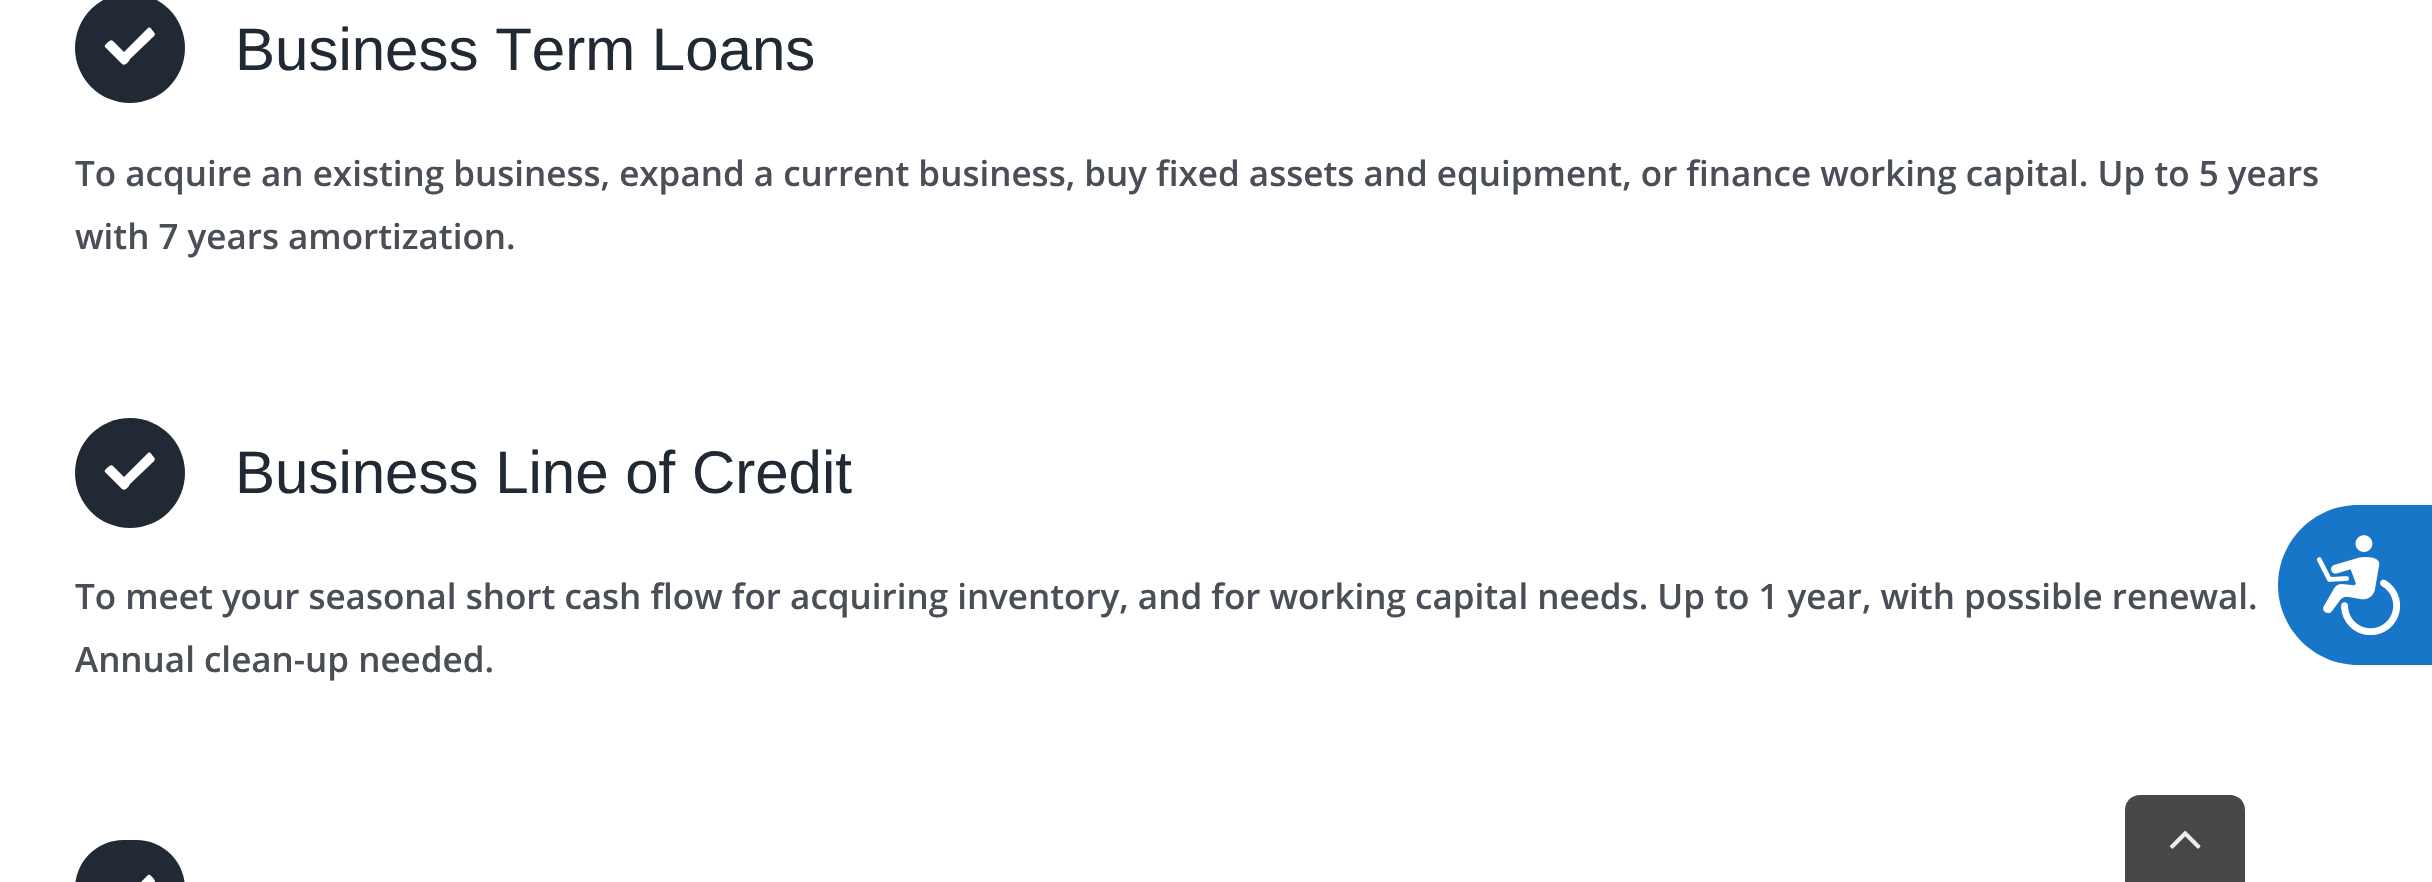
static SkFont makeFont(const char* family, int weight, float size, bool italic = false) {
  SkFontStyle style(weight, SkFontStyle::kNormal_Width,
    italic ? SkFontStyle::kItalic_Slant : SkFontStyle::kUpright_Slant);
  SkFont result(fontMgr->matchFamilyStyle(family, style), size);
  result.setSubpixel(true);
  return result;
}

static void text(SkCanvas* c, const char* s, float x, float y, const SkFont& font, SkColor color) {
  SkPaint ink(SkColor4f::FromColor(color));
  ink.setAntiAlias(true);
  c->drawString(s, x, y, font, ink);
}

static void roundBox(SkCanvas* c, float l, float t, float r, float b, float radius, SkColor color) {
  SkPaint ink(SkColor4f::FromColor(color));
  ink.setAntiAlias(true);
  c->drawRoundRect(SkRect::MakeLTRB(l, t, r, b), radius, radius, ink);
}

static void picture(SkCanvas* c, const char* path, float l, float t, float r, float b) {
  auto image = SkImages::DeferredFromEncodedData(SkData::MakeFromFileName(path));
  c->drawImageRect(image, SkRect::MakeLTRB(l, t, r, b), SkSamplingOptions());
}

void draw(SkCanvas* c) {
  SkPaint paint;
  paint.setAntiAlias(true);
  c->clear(0xffffffff);
  paint.setColor(0xff212934);
  c->drawCircle(130, 48, 55, paint);
  paint.setColor(0xffffffff);
  c->drawPath(SkPathBuilder().moveTo(122, 64).lineTo(105, 47).cubicTo(104, 46, 106, 44, 107, 43).cubicTo(111, 40, 111, 39, 115, 43).lineTo(124, 52).lineTo(148, 28).cubicTo(150, 27, 151, 28, 152, 30).cubicTo(157, 35, 155, 35, 150, 40).lineTo(130, 59).cubicTo(130, 60, 125, 67, 122, 64).close().detach(), paint);
  SkFont face1 = makeFont("Liberation Sans", 400, 60);
  text(c, "Business Term Loans", 235, 70, face1, 0xff212934);
  SkFont face2 = makeFont("Open Sans", 600, 35);
  text(c, "To acquire an existing business, expand a current business, buy fixed assets and equipment, or finance working capital. Up to 5 years", 75, 186, face2, 0xff4a4e57);
  text(c, "with 7 years amortization.", 75, 249, face2, 0xff4a4e57);
  paint.setColor(0xff212934);
  c->drawCircle(130, 473, 55, paint);
  paint.setColor(0xffffffff);
  c->drawPath(SkPathBuilder().moveTo(122, 489).lineTo(105, 472).cubicTo(104, 471, 106, 469, 107, 468).cubicTo(111, 465, 111, 464, 115, 468).lineTo(124, 477).lineTo(148, 453).cubicTo(150, 452, 151, 453, 152, 455).cubicTo(157, 460, 155, 460, 150, 465).lineTo(130, 484).cubicTo(130, 485, 125, 492, 122, 489).close().detach(), paint);
  text(c, "Business Line of Credit", 235, 493, face1, 0xff212934);
  text(c, "To meet your seasonal short cash flow for acquiring inventory, and for working capital needs. Up to 1 year, with possible renewal.", 75, 609, face2, 0xff4a4e57);
  text(c, "Annual clean-up needed.", 75, 672, face2, 0xff4a4e57);
  roundBox(c, 75, 840, 185, 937, 55, 0xff212934);
  c->drawPath(SkPathBuilder().moveTo(122, 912).lineTo(105, 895).cubicTo(104, 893, 106, 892, 107, 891).cubicTo(111, 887, 111, 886, 115, 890).lineTo(124, 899).lineTo(148, 875).cubicTo(150, 874, 151, 876, 152, 877).cubicTo(157, 882, 155, 882, 150, 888).lineTo(130, 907).cubicTo(130, 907, 125, 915, 122, 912).close().detach(), paint);
  paint.setColor(0xff1876c9);
  c->drawPath(SkPathBuilder().moveTo(2358, 505).lineTo(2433, 505).lineTo(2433, 665).lineTo(2358, 665).cubicTo(2314, 665, 2278, 629, 2278, 585).cubicTo(2278, 541, 2314, 505, 2358, 505).close().detach(), paint);
  picture(c, "img_01.png", 2316, 535, 2401, 635);
  paint.setColor(0xff474747);
  c->drawPath(SkPathBuilder().moveTo(2140, 795).lineTo(2230, 795).cubicTo(2238.5f, 795, 2245, 801.5f, 2245, 810).lineTo(2245, 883).lineTo(2125, 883).lineTo(2125, 810).cubicTo(2125, 801.5f, 2131.5f, 795, 2140, 795).close().detach(), paint);
  picture(c, "img_02.png", 2169, 830, 2201, 849);
}
